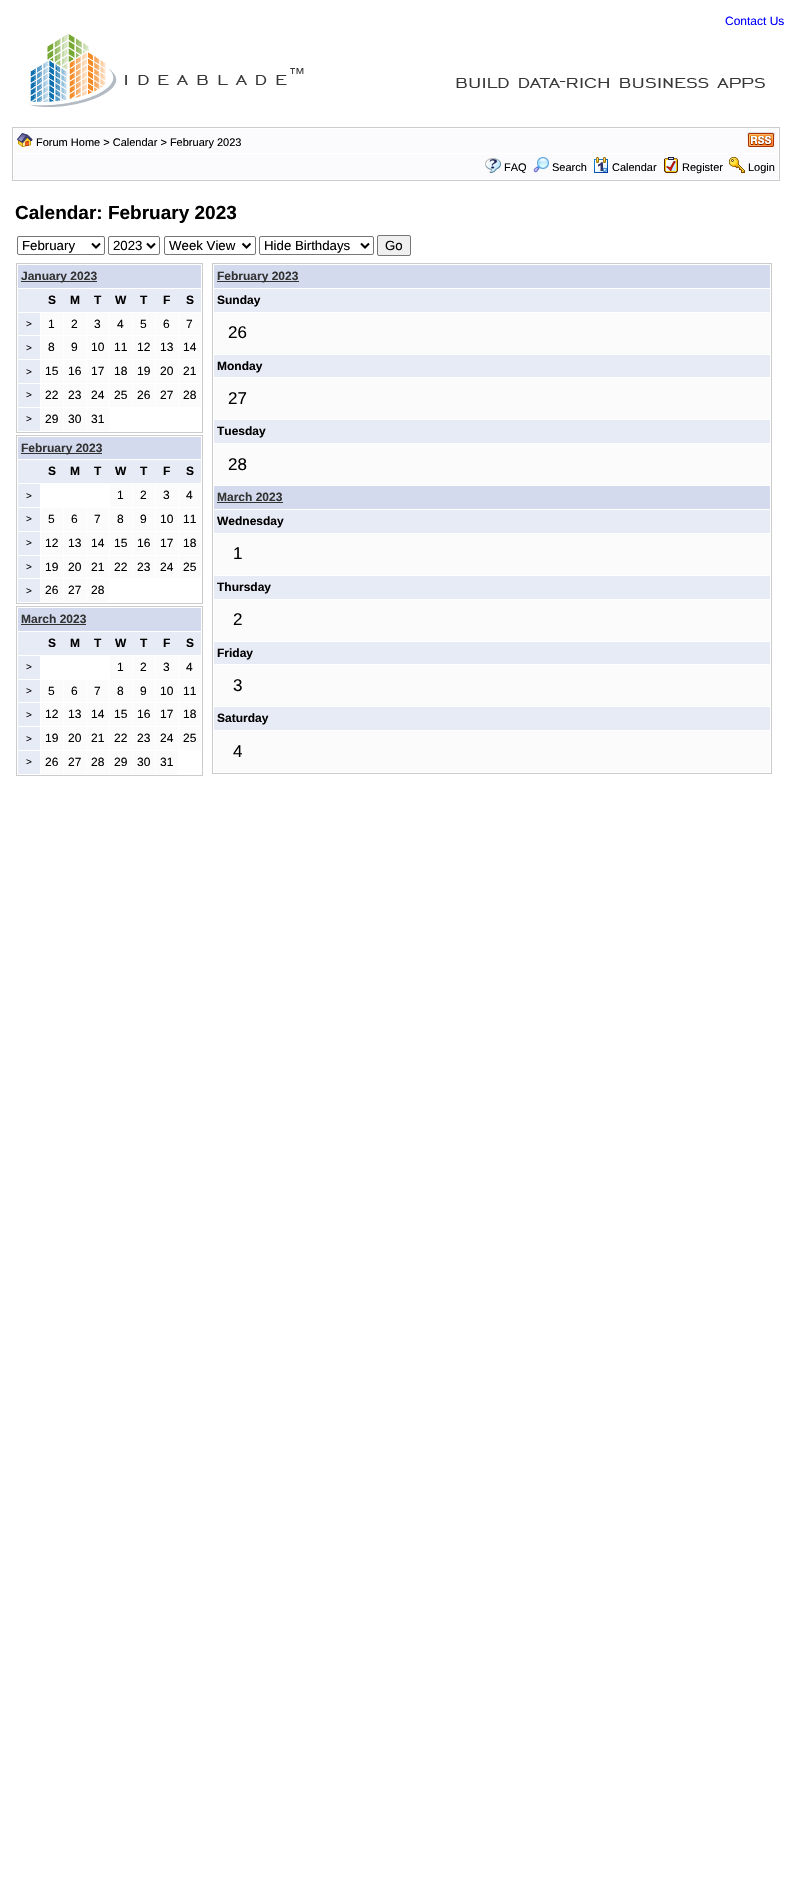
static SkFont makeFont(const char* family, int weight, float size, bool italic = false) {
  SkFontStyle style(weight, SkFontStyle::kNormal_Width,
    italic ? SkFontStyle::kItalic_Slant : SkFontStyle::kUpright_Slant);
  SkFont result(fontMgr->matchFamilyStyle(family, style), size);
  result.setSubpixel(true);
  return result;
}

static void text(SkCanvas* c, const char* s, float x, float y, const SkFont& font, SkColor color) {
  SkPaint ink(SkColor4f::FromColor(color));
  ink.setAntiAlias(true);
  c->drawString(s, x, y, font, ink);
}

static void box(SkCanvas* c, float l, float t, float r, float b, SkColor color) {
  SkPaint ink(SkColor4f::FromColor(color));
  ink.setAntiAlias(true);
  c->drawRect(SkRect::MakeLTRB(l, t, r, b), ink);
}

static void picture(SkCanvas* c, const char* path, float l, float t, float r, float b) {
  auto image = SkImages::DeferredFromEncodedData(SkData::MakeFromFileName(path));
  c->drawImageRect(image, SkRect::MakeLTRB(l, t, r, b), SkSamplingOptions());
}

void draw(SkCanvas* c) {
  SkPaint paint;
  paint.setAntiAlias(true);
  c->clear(0xffffffff);
  SkFont face1 = makeFont("Liberation Sans", 400, 12);
  text(c, "Contact Us", 725, 25, face1, 0xff0000ff);
  picture(c, "img_01.png", 29, 34, 304, 107);
  picture(c, "img_02.png", 456, 78, 765, 88);
  paint.setStyle(SkPaint::kStroke_Style);
  paint.setStrokeWidth(1);
  paint.setColor(0xffcccccc);
  c->drawRect(SkRect::MakeLTRB(12.5f, 127.5f, 779.5f, 180.5f), paint);
  box(c, 14, 129, 778, 153, 0xfffbfbfd);
  picture(c, "img_03.png", 17, 133, 33, 147);
  SkFont face2 = makeFont("Liberation Sans", 400, 11);
  text(c, "Forum Home > Calendar > February 2023", 36, 146, face2, 0xff000000);
  picture(c, "img_04.png", 747, 132, 775, 147);
  box(c, 14, 154, 778, 179, 0xfffbfbfd);
  picture(c, "img_05.png", 485, 158, 501, 173);
  text(c, "FAQ", 504, 171, face2, 0xff000000);
  picture(c, "img_06.png", 533, 157, 549, 173);
  text(c, "Search", 552, 171, face2, 0xff000000);
  picture(c, "img_07.png", 594, 157, 608, 173);
  text(c, "Calendar", 612, 171, face2, 0xff000000);
  picture(c, "img_08.png", 664, 157, 678, 173);
  text(c, "Register", 682, 171, face2, 0xff000000);
  picture(c, "img_09.png", 729, 157, 745, 173);
  text(c, "Login", 748, 171, face2, 0xff000000);
  SkFont face3 = makeFont("Liberation Sans", 700, 19);
  text(c, "Calendar: February 2023", 15, 219, face3, 0xff000000);
  paint.setColor(0xff767676);
  c->drawRoundRect(SkRect::MakeLTRB(17.5f, 236.5f, 104.5f, 254.5f), 1.5f, 1.5f, paint);
  paint.setStrokeWidth(2);
  paint.setColor(0xff000000);
  c->drawPath(SkPathBuilder().moveTo(92, 243.5f).lineTo(96, 247.5f).lineTo(100, 243.5f).detach(), paint);
  SkFont face4 = makeFont("Liberation Sans", 400, 13.25f);
  text(c, "February", 22, 250, face4, 0xff000000);
  paint.setStrokeWidth(1);
  paint.setColor(0xff767676);
  c->drawRoundRect(SkRect::MakeLTRB(108.5f, 236.5f, 159.5f, 254.5f), 1.5f, 1.5f, paint);
  paint.setStrokeWidth(2);
  paint.setColor(0xff000000);
  c->drawPath(SkPathBuilder().moveTo(147, 243.5f).lineTo(151, 247.5f).lineTo(155, 243.5f).detach(), paint);
  text(c, "2023", 113, 250, face4, 0xff000000);
  paint.setStrokeWidth(1);
  paint.setColor(0xff767676);
  c->drawRoundRect(SkRect::MakeLTRB(164.5f, 236.5f, 255.5f, 254.5f), 1.5f, 1.5f, paint);
  paint.setStrokeWidth(2);
  paint.setColor(0xff000000);
  c->drawPath(SkPathBuilder().moveTo(242.5f, 243.5f).lineTo(246.5f, 247.5f).lineTo(250.5f, 243.5f).detach(), paint);
  text(c, "Week View", 169, 250, face4, 0xff000000);
  paint.setStrokeWidth(1);
  paint.setColor(0xff767676);
  c->drawRoundRect(SkRect::MakeLTRB(259.5f, 236.5f, 373.5f, 254.5f), 1.5f, 1.5f, paint);
  paint.setStrokeWidth(2);
  paint.setColor(0xff000000);
  c->drawPath(SkPathBuilder().moveTo(361, 243.5f).lineTo(365, 247.5f).lineTo(369, 243.5f).detach(), paint);
  text(c, "Hide Birthdays", 264, 250, face4, 0xff000000);
  paint.setStyle(SkPaint::kFill_Style);
  paint.setColor(0xffefefef);
  c->drawRoundRect(SkRect::MakeLTRB(377.5f, 235.5f, 410.5f, 255.5f), 1.5f, 1.5f, paint);
  paint.setStyle(SkPaint::kStroke_Style);
  paint.setStrokeWidth(1);
  paint.setColor(0xff767676);
  c->drawRoundRect(SkRect::MakeLTRB(377.5f, 235.5f, 410.5f, 255.5f), 1.5f, 1.5f, paint);
  text(c, "Go", 385, 250, face4, 0xff000000);
  paint.setColor(0xffcccccc);
  c->drawRect(SkRect::MakeLTRB(16.5f, 263.5f, 202.5f, 432.5f), paint);
  box(c, 18, 265, 201, 288, 0xffd3daed);
  box(c, 21, 281, 97, 282, 0xff333333);
  SkFont face5 = makeFont("Liberation Sans", 700, 12);
  text(c, "January 2023", 21, 280, face5, 0xff333333);
  box(c, 18, 289, 201, 312, 0xffe7ebf5);
  text(c, "S", 48, 304, face5, 0xff000000);
  text(c, "M", 70, 304, face5, 0xff000000);
  text(c, "T", 94, 304, face5, 0xff000000);
  text(c, "W", 115, 304, face5, 0xff000000);
  text(c, "T", 140, 304, face5, 0xff000000);
  text(c, "F", 163, 304, face5, 0xff000000);
  text(c, "S", 186, 304, face5, 0xff000000);
  box(c, 18, 313, 40, 335, 0xffe7ebf5);
  SkFont face6 = makeFont("Liberation Sans", 400, 10);
  text(c, ">", 26, 327, face6, 0xff000000);
  box(c, 41, 313, 63, 335, 0xfffbfbfb);
  text(c, "1", 48, 328, face1, 0xff000000);
  box(c, 64, 313, 86, 335, 0xfffbfbfb);
  text(c, "2", 71, 328, face1, 0xff000000);
  box(c, 87, 313, 109, 335, 0xfffbfbfb);
  text(c, "3", 94, 328, face1, 0xff000000);
  box(c, 110, 313, 132, 335, 0xfffbfbfb);
  text(c, "4", 117, 328, face1, 0xff000000);
  box(c, 133, 313, 155, 335, 0xfffbfbfb);
  text(c, "5", 140, 328, face1, 0xff000000);
  box(c, 156, 313, 178, 335, 0xfffbfbfb);
  text(c, "6", 163, 328, face1, 0xff000000);
  box(c, 179, 313, 201, 335, 0xfffbfbfb);
  text(c, "7", 186, 328, face1, 0xff000000);
  box(c, 18, 336, 40, 359, 0xffe7ebf5);
  text(c, ">", 26, 351, face6, 0xff000000);
  box(c, 41, 336, 63, 359, 0xfffbfbfb);
  text(c, "8", 48, 351, face1, 0xff000000);
  box(c, 64, 336, 86, 359, 0xfffbfbfb);
  text(c, "9", 71, 351, face1, 0xff000000);
  box(c, 87, 336, 109, 359, 0xfffbfbfb);
  text(c, "10", 91, 351, face1, 0xff000000);
  box(c, 110, 336, 132, 359, 0xfffbfbfb);
  text(c, "11", 114, 351, face1, 0xff000000);
  box(c, 133, 336, 155, 359, 0xfffbfbfb);
  text(c, "12", 137, 351, face1, 0xff000000);
  box(c, 156, 336, 178, 359, 0xfffbfbfb);
  text(c, "13", 160, 351, face1, 0xff000000);
  box(c, 179, 336, 201, 359, 0xfffbfbfb);
  text(c, "14", 183, 351, face1, 0xff000000);
  box(c, 18, 360, 40, 383, 0xffe7ebf5);
  text(c, ">", 26, 375, face6, 0xff000000);
  box(c, 41, 360, 63, 383, 0xfffbfbfb);
  text(c, "15", 45, 375, face1, 0xff000000);
  box(c, 64, 360, 86, 383, 0xfffbfbfb);
  text(c, "16", 68, 375, face1, 0xff000000);
  box(c, 87, 360, 109, 383, 0xfffbfbfb);
  text(c, "17", 91, 375, face1, 0xff000000);
  box(c, 110, 360, 132, 383, 0xfffbfbfb);
  text(c, "18", 114, 375, face1, 0xff000000);
  box(c, 133, 360, 155, 383, 0xfffbfbfb);
  text(c, "19", 137, 375, face1, 0xff000000);
  box(c, 156, 360, 178, 383, 0xfffbfbfb);
  text(c, "20", 160, 375, face1, 0xff000000);
  box(c, 179, 360, 201, 383, 0xfffbfbfb);
  text(c, "21", 183, 375, face1, 0xff000000);
  box(c, 18, 384, 40, 407, 0xffe7ebf5);
  text(c, ">", 26, 398, face6, 0xff000000);
  box(c, 41, 384, 63, 407, 0xfffbfbfb);
  text(c, "22", 45, 399, face1, 0xff000000);
  box(c, 64, 384, 86, 407, 0xfffbfbfb);
  text(c, "23", 68, 399, face1, 0xff000000);
  box(c, 87, 384, 109, 407, 0xfffbfbfb);
  text(c, "24", 91, 399, face1, 0xff000000);
  box(c, 110, 384, 132, 407, 0xfffbfbfb);
  text(c, "25", 114, 399, face1, 0xff000000);
  box(c, 133, 384, 155, 407, 0xfffbfbfb);
  text(c, "26", 137, 399, face1, 0xff000000);
  box(c, 156, 384, 178, 407, 0xfffbfbfb);
  text(c, "27", 160, 399, face1, 0xff000000);
  box(c, 179, 384, 201, 407, 0xfffbfbfb);
  text(c, "28", 183, 399, face1, 0xff000000);
  box(c, 18, 408, 40, 431, 0xffe7ebf5);
  text(c, ">", 26, 422, face6, 0xff000000);
  box(c, 41, 408, 63, 431, 0xfffbfbfb);
  text(c, "29", 45, 423, face1, 0xff000000);
  box(c, 64, 408, 86, 431, 0xfffbfbfb);
  text(c, "30", 68, 423, face1, 0xff000000);
  box(c, 87, 408, 109, 431, 0xfffbfbfb);
  text(c, "31", 91, 423, face1, 0xff000000);
  c->drawRect(SkRect::MakeLTRB(212.5f, 263.5f, 771.5f, 773.5f), paint);
  box(c, 214, 265, 770, 288, 0xffd3daed);
  box(c, 217, 281, 299, 282, 0xff333333);
  text(c, "February 2023", 217, 280, face5, 0xff333333);
  box(c, 214, 289, 770, 312, 0xffe7ebf5);
  text(c, "Sunday", 217, 304, face5, 0xff000000);
  box(c, 214, 313, 770, 354, 0xfffbfbfb);
  SkFont face7 = makeFont("Liberation Sans", 400, 17);
  text(c, "26", 228, 338, face7, 0xff000000);
  box(c, 214, 355, 770, 377, 0xffe7ebf5);
  text(c, "Monday", 217, 370, face5, 0xff000000);
  box(c, 214, 378, 770, 419, 0xfffbfbfb);
  text(c, "27", 228, 404, face7, 0xff000000);
  box(c, 214, 420, 770, 443, 0xffe7ebf5);
  text(c, "Tuesday", 217, 435, face5, 0xff000000);
  box(c, 214, 444, 770, 485, 0xfffbfbfb);
  text(c, "28", 228, 470, face7, 0xff000000);
  box(c, 214, 486, 770, 509, 0xffd3daed);
  text(c, "March 2023", 217, 501, face5, 0xff333333);
  box(c, 217, 502, 283, 503, 0xff333333);
  box(c, 214, 510, 770, 533, 0xffe7ebf5);
  text(c, "Wednesday", 217, 525, face5, 0xff000000);
  box(c, 214, 534, 770, 575, 0xfffbfbfb);
  text(c, "1", 233, 559, face7, 0xff000000);
  box(c, 214, 576, 770, 599, 0xffe7ebf5);
  text(c, "Thursday", 217, 591, face5, 0xff000000);
  box(c, 214, 600, 770, 641, 0xfffbfbfb);
  text(c, "2", 233, 625, face7, 0xff000000);
  box(c, 214, 642, 770, 664, 0xffe7ebf5);
  text(c, "Friday", 217, 657, face5, 0xff000000);
  box(c, 214, 665, 770, 706, 0xfffbfbfb);
  text(c, "3", 233, 691, face7, 0xff000000);
  box(c, 214, 707, 770, 730, 0xffe7ebf5);
  text(c, "Saturday", 217, 722, face5, 0xff000000);
  box(c, 214, 731, 770, 772, 0xfffbfbfb);
  text(c, "4", 233, 757, face7, 0xff000000);
  c->drawRect(SkRect::MakeLTRB(16.5f, 435.5f, 202.5f, 603.5f), paint);
  box(c, 18, 437, 201, 459, 0xffd3daed);
  box(c, 21, 453, 102, 454, 0xff333333);
  text(c, "February 2023", 21, 452, face5, 0xff333333);
  box(c, 18, 460, 201, 483, 0xffe7ebf5);
  text(c, "S", 48, 475, face5, 0xff000000);
  text(c, "M", 70, 475, face5, 0xff000000);
  text(c, "T", 94, 475, face5, 0xff000000);
  text(c, "W", 115, 475, face5, 0xff000000);
  text(c, "T", 140, 475, face5, 0xff000000);
  text(c, "F", 163, 475, face5, 0xff000000);
  text(c, "S", 186, 475, face5, 0xff000000);
  box(c, 18, 484, 40, 507, 0xffe7ebf5);
  text(c, ">", 26, 499, face6, 0xff000000);
  box(c, 110, 484, 132, 507, 0xfffbfbfb);
  text(c, "1", 117, 499, face1, 0xff000000);
  box(c, 133, 484, 155, 507, 0xfffbfbfb);
  text(c, "2", 140, 499, face1, 0xff000000);
  box(c, 156, 484, 178, 507, 0xfffbfbfb);
  text(c, "3", 163, 499, face1, 0xff000000);
  box(c, 179, 484, 201, 507, 0xfffbfbfb);
  text(c, "4", 186, 499, face1, 0xff000000);
  box(c, 18, 508, 40, 531, 0xffe7ebf5);
  text(c, ">", 26, 522, face6, 0xff000000);
  box(c, 41, 508, 63, 531, 0xfffbfbfb);
  text(c, "5", 48, 523, face1, 0xff000000);
  box(c, 64, 508, 86, 531, 0xfffbfbfb);
  text(c, "6", 71, 523, face1, 0xff000000);
  box(c, 87, 508, 109, 531, 0xfffbfbfb);
  text(c, "7", 94, 523, face1, 0xff000000);
  box(c, 110, 508, 132, 531, 0xfffbfbfb);
  text(c, "8", 117, 523, face1, 0xff000000);
  box(c, 133, 508, 155, 531, 0xfffbfbfb);
  text(c, "9", 140, 523, face1, 0xff000000);
  box(c, 156, 508, 178, 531, 0xfffbfbfb);
  text(c, "10", 160, 523, face1, 0xff000000);
  box(c, 179, 508, 201, 531, 0xfffbfbfb);
  text(c, "11", 183, 523, face1, 0xff000000);
  box(c, 18, 532, 40, 555, 0xffe7ebf5);
  text(c, ">", 26, 546, face6, 0xff000000);
  box(c, 41, 532, 63, 555, 0xfffbfbfb);
  text(c, "12", 45, 547, face1, 0xff000000);
  box(c, 64, 532, 86, 555, 0xfffbfbfb);
  text(c, "13", 68, 547, face1, 0xff000000);
  box(c, 87, 532, 109, 555, 0xfffbfbfb);
  text(c, "14", 91, 547, face1, 0xff000000);
  box(c, 110, 532, 132, 555, 0xfffbfbfb);
  text(c, "15", 114, 547, face1, 0xff000000);
  box(c, 133, 532, 155, 555, 0xfffbfbfb);
  text(c, "16", 137, 547, face1, 0xff000000);
  box(c, 156, 532, 178, 555, 0xfffbfbfb);
  text(c, "17", 160, 547, face1, 0xff000000);
  box(c, 179, 532, 201, 555, 0xfffbfbfb);
  text(c, "18", 183, 547, face1, 0xff000000);
  box(c, 18, 556, 40, 578, 0xffe7ebf5);
  text(c, ">", 26, 570, face6, 0xff000000);
  box(c, 41, 556, 63, 578, 0xfffbfbfb);
  text(c, "19", 45, 571, face1, 0xff000000);
  box(c, 64, 556, 86, 578, 0xfffbfbfb);
  text(c, "20", 68, 571, face1, 0xff000000);
  box(c, 87, 556, 109, 578, 0xfffbfbfb);
  text(c, "21", 91, 571, face1, 0xff000000);
  box(c, 110, 556, 132, 578, 0xfffbfbfb);
  text(c, "22", 114, 571, face1, 0xff000000);
  box(c, 133, 556, 155, 578, 0xfffbfbfb);
  text(c, "23", 137, 571, face1, 0xff000000);
  box(c, 156, 556, 178, 578, 0xfffbfbfb);
  text(c, "24", 160, 571, face1, 0xff000000);
  box(c, 179, 556, 201, 578, 0xfffbfbfb);
  text(c, "25", 183, 571, face1, 0xff000000);
  box(c, 18, 579, 40, 602, 0xffe7ebf5);
  text(c, ">", 26, 594, face6, 0xff000000);
  box(c, 41, 579, 63, 602, 0xfffbfbfb);
  text(c, "26", 45, 594, face1, 0xff000000);
  box(c, 64, 579, 86, 602, 0xfffbfbfb);
  text(c, "27", 68, 594, face1, 0xff000000);
  box(c, 87, 579, 109, 602, 0xfffbfbfb);
  text(c, "28", 91, 594, face1, 0xff000000);
  c->drawRect(SkRect::MakeLTRB(16.5f, 606.5f, 202.5f, 775.5f), paint);
  box(c, 18, 608, 201, 631, 0xffd3daed);
  text(c, "March 2023", 21, 623, face5, 0xff333333);
  box(c, 21, 624, 86, 625, 0xff333333);
  box(c, 18, 632, 201, 655, 0xffe7ebf5);
  text(c, "S", 48, 647, face5, 0xff000000);
  text(c, "M", 70, 647, face5, 0xff000000);
  text(c, "T", 94, 647, face5, 0xff000000);
  text(c, "W", 115, 647, face5, 0xff000000);
  text(c, "T", 140, 647, face5, 0xff000000);
  text(c, "F", 163, 647, face5, 0xff000000);
  text(c, "S", 186, 647, face5, 0xff000000);
  box(c, 18, 656, 40, 679, 0xffe7ebf5);
  text(c, ">", 26, 670, face6, 0xff000000);
  box(c, 110, 656, 132, 679, 0xfffbfbfb);
  text(c, "1", 117, 671, face1, 0xff000000);
  box(c, 133, 656, 155, 679, 0xfffbfbfb);
  text(c, "2", 140, 671, face1, 0xff000000);
  box(c, 156, 656, 178, 679, 0xfffbfbfb);
  text(c, "3", 163, 671, face1, 0xff000000);
  box(c, 179, 656, 201, 679, 0xfffbfbfb);
  text(c, "4", 186, 671, face1, 0xff000000);
  box(c, 18, 680, 40, 702, 0xffe7ebf5);
  text(c, ">", 26, 694, face6, 0xff000000);
  box(c, 41, 680, 63, 702, 0xfffbfbfb);
  text(c, "5", 48, 695, face1, 0xff000000);
  box(c, 64, 680, 86, 702, 0xfffbfbfb);
  text(c, "6", 71, 695, face1, 0xff000000);
  box(c, 87, 680, 109, 702, 0xfffbfbfb);
  text(c, "7", 94, 695, face1, 0xff000000);
  box(c, 110, 680, 132, 702, 0xfffbfbfb);
  text(c, "8", 117, 695, face1, 0xff000000);
  box(c, 133, 680, 155, 702, 0xfffbfbfb);
  text(c, "9", 140, 695, face1, 0xff000000);
  box(c, 156, 680, 178, 702, 0xfffbfbfb);
  text(c, "10", 160, 695, face1, 0xff000000);
  box(c, 179, 680, 201, 702, 0xfffbfbfb);
  text(c, "11", 183, 695, face1, 0xff000000);
  box(c, 18, 703, 40, 726, 0xffe7ebf5);
  text(c, ">", 26, 718, face6, 0xff000000);
  box(c, 41, 703, 63, 726, 0xfffbfbfb);
  text(c, "12", 45, 718, face1, 0xff000000);
  box(c, 64, 703, 86, 726, 0xfffbfbfb);
  text(c, "13", 68, 718, face1, 0xff000000);
  box(c, 87, 703, 109, 726, 0xfffbfbfb);
  text(c, "14", 91, 718, face1, 0xff000000);
  box(c, 110, 703, 132, 726, 0xfffbfbfb);
  text(c, "15", 114, 718, face1, 0xff000000);
  box(c, 133, 703, 155, 726, 0xfffbfbfb);
  text(c, "16", 137, 718, face1, 0xff000000);
  box(c, 156, 703, 178, 726, 0xfffbfbfb);
  text(c, "17", 160, 718, face1, 0xff000000);
  box(c, 179, 703, 201, 726, 0xfffbfbfb);
  text(c, "18", 183, 718, face1, 0xff000000);
  box(c, 18, 727, 40, 750, 0xffe7ebf5);
  text(c, ">", 26, 742, face6, 0xff000000);
  box(c, 41, 727, 63, 750, 0xfffbfbfb);
  text(c, "19", 45, 742, face1, 0xff000000);
  box(c, 64, 727, 86, 750, 0xfffbfbfb);
  text(c, "20", 68, 742, face1, 0xff000000);
  box(c, 87, 727, 109, 750, 0xfffbfbfb);
  text(c, "21", 91, 742, face1, 0xff000000);
  box(c, 110, 727, 132, 750, 0xfffbfbfb);
  text(c, "22", 114, 742, face1, 0xff000000);
  box(c, 133, 727, 155, 750, 0xfffbfbfb);
  text(c, "23", 137, 742, face1, 0xff000000);
  box(c, 156, 727, 178, 750, 0xfffbfbfb);
  text(c, "24", 160, 742, face1, 0xff000000);
  box(c, 179, 727, 201, 750, 0xfffbfbfb);
  text(c, "25", 183, 742, face1, 0xff000000);
  box(c, 18, 751, 40, 774, 0xffe7ebf5);
  text(c, ">", 26, 765, face6, 0xff000000);
  box(c, 41, 751, 63, 774, 0xfffbfbfb);
  text(c, "26", 45, 766, face1, 0xff000000);
  box(c, 64, 751, 86, 774, 0xfffbfbfb);
  text(c, "27", 68, 766, face1, 0xff000000);
  box(c, 87, 751, 109, 774, 0xfffbfbfb);
  text(c, "28", 91, 766, face1, 0xff000000);
  box(c, 110, 751, 132, 774, 0xfffbfbfb);
  text(c, "29", 114, 766, face1, 0xff000000);
  box(c, 133, 751, 155, 774, 0xfffbfbfb);
  text(c, "30", 137, 766, face1, 0xff000000);
  box(c, 156, 751, 178, 774, 0xfffbfbfb);
  text(c, "31", 160, 766, face1, 0xff000000);
}
